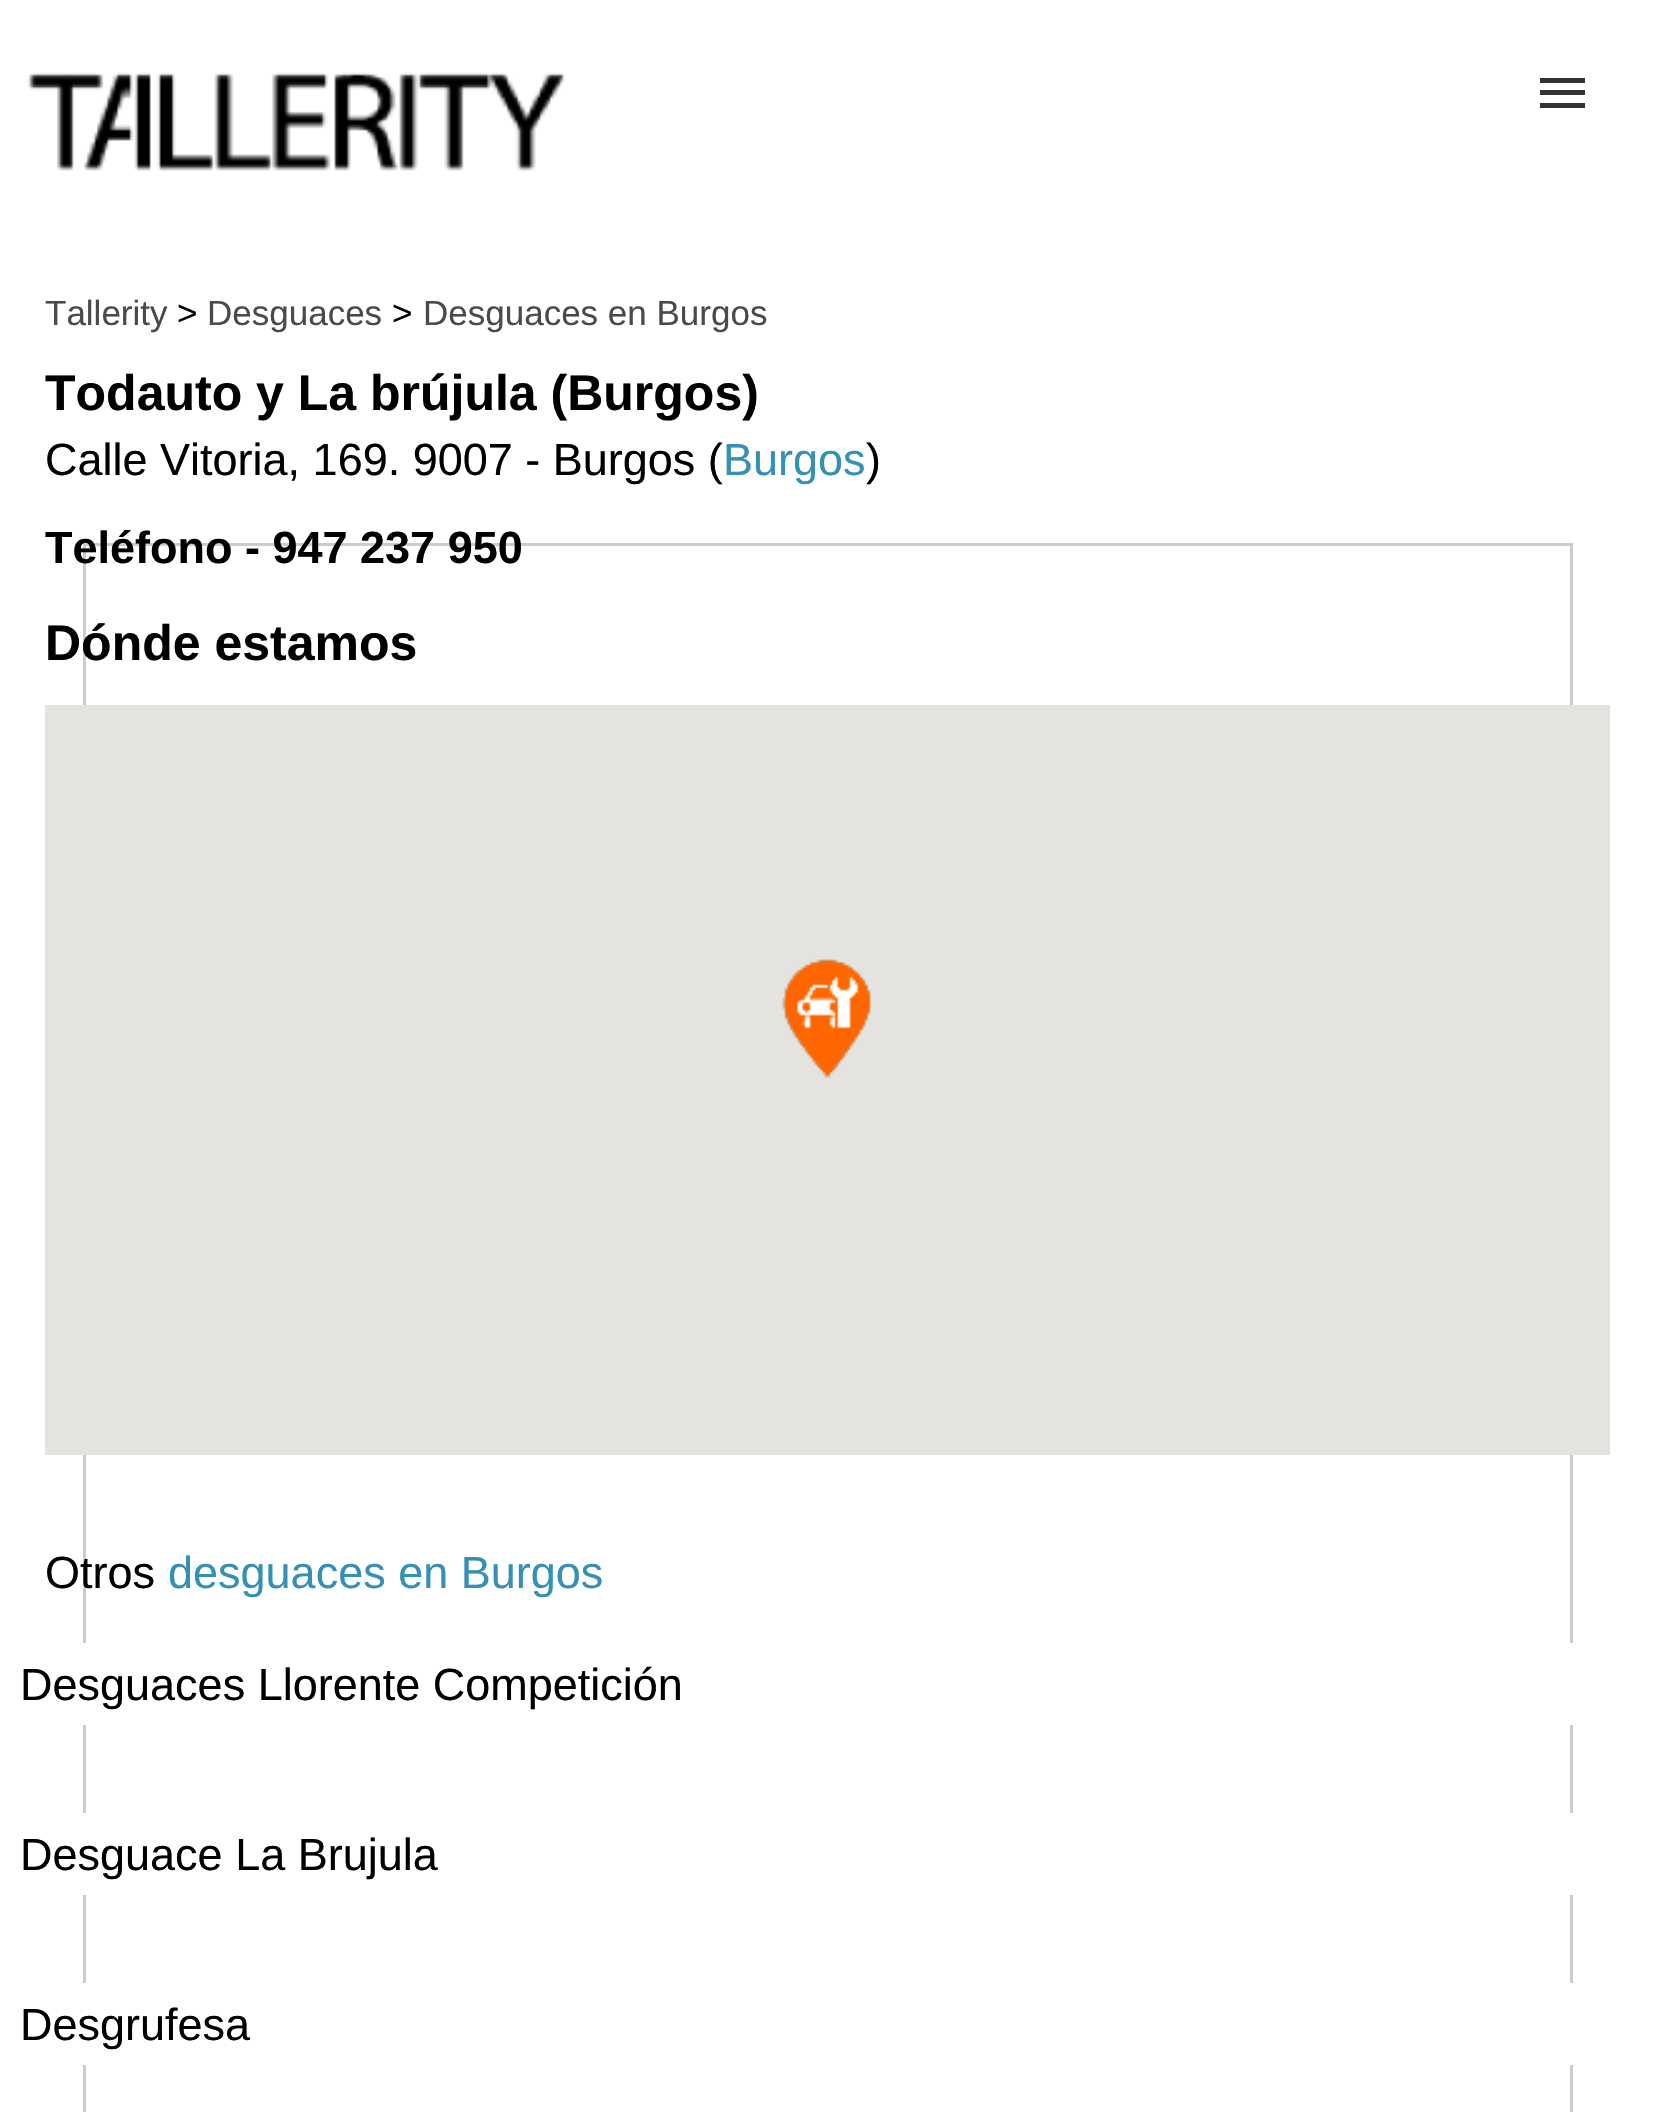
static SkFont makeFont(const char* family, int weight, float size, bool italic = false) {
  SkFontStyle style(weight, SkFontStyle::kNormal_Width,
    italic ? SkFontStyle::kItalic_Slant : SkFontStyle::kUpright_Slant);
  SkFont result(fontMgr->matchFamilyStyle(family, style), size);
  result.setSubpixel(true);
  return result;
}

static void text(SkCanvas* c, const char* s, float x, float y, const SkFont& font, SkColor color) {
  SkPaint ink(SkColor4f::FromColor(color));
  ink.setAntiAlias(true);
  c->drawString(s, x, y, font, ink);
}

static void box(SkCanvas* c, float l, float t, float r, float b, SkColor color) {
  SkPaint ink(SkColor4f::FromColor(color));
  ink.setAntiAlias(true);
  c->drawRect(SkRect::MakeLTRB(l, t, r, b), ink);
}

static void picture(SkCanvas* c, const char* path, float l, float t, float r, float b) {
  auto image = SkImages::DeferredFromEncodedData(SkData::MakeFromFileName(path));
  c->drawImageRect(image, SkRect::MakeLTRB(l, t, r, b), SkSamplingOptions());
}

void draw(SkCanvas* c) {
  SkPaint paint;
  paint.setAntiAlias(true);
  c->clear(0xffffffff);
  picture(c, "img_01.png", 27, 72, 566, 171);
  box(c, 1540, 90, 1585, 95, 0xff333333);
  box(c, 1540, 78, 1585, 83, 0xff333333);
  box(c, 1540, 103, 1585, 108, 0xff333333);
  SkFont face1 = makeFont("Liberation Sans", 400, 35);
  text(c, "Tallerity", 45, 325, face1, 0xff4a4a4a);
  text(c, ">", 177, 325, face1, 0xff000000);
  text(c, "Desguaces", 207, 325, face1, 0xff4a4a4a);
  text(c, ">", 392, 325, face1, 0xff000000);
  text(c, "Desguaces en Burgos", 423, 325, face1, 0xff4a4a4a);
  SkFont face2 = makeFont("Liberation Sans", 700, 50);
  text(c, "Todauto y La brújula (Burgos)", 45, 410, face2, 0xff000000);
  SkFont face3 = makeFont("Liberation Sans", 400, 45);
  text(c, "Calle Vitoria, 169. 9007 - Burgos (", 45, 475, face3, 0xff000000);
  text(c, "Burgos", 723, 475, face3, 0xff3490b5);
  text(c, ")", 866, 475, face3, 0xff000000);
  paint.setStyle(SkPaint::kStroke_Style);
  paint.setStrokeWidth(3);
  paint.setColor(0xffcccccc);
  c->drawRect(SkRect::MakeLTRB(84.5f, 544.5f, 1571.5f, 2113.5f), paint);
  SkFont face4 = makeFont("Liberation Sans", 700, 45);
  text(c, "Teléfono - 947 237 950", 45, 563, face4, 0xff000000);
  text(c, "Dónde estamos", 45, 660, face2, 0xff000000);
  box(c, 45, 705, 1610, 1455, 0xffe5e3df);
  picture(c, "img_02.png", 781, 959, 871, 1079);
  text(c, "Otros", 45, 1588, face3, 0xff000000);
  text(c, "desguaces en Burgos", 168, 1588, face3, 0xff3490b5);
  box(c, 83, 1643, 1573, 1725, 0xffffffff);
  text(c, "Desguaces Llorente Competición", 20, 1700, face3, 0xff000000);
  box(c, 83, 1813, 1573, 1895, 0xffffffff);
  text(c, "Desguace La Brujula", 20, 1870, face3, 0xff000000);
  box(c, 83, 1983, 1573, 2065, 0xffffffff);
  text(c, "Desgrufesa", 20, 2040, face3, 0xff000000);
}
